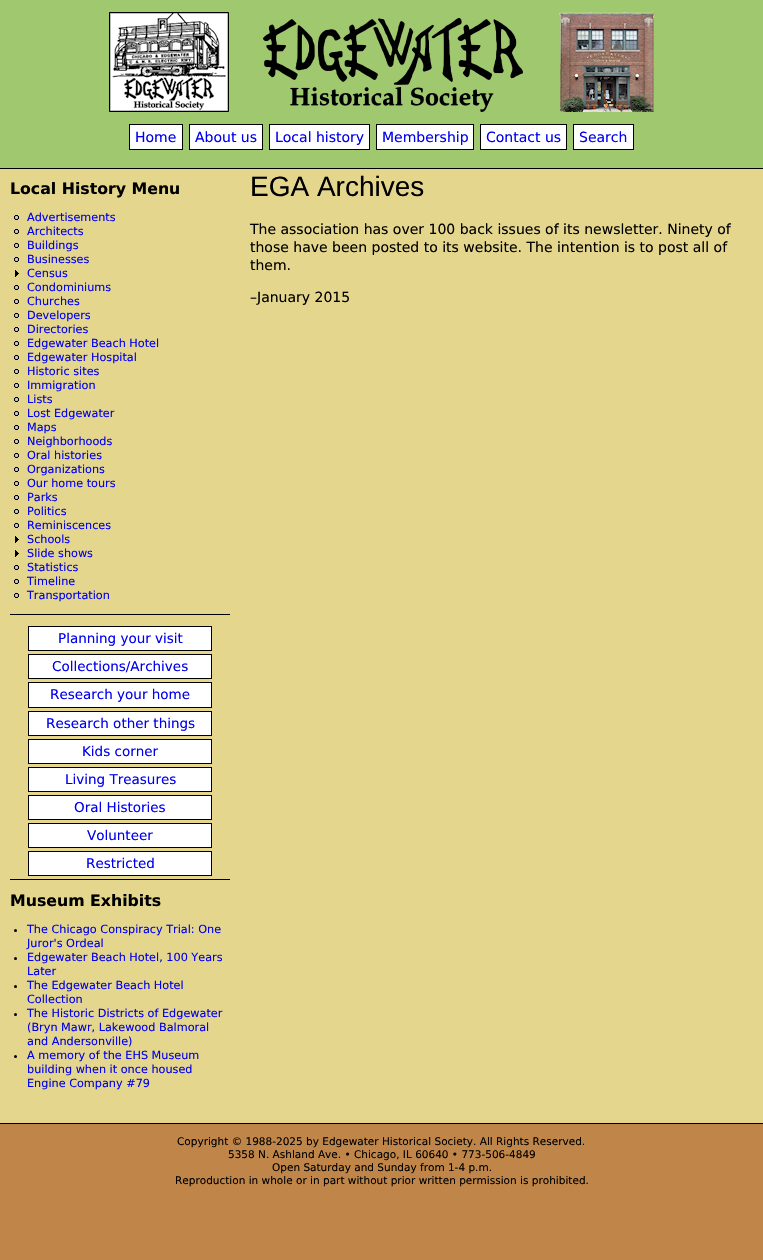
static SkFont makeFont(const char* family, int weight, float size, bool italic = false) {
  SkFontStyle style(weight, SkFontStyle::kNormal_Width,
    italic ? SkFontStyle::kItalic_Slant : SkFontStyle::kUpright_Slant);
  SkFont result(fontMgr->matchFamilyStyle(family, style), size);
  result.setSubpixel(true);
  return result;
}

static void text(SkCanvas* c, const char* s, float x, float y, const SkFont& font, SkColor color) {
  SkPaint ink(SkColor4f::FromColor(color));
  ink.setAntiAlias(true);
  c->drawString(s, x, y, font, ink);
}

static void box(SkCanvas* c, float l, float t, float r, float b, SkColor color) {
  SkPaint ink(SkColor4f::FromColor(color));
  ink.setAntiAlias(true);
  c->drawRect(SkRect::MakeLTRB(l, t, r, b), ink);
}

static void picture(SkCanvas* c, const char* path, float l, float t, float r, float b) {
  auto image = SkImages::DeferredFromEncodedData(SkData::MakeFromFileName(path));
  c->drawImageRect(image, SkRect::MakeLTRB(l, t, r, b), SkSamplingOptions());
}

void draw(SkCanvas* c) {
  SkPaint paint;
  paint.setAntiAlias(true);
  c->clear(0xffc08548);
  box(c, 0, 0, 763, 168, 0xffa0c86f);
  box(c, 0, 168, 763, 169, 0xff000000);
  picture(c, "img_01.png", 109, 12, 655, 112);
  paint.setColor(0xffffffff);
  c->drawRect(SkRect::MakeLTRB(129.5f, 124.5f, 182.5f, 149.5f), paint);
  paint.setStyle(SkPaint::kStroke_Style);
  paint.setStrokeWidth(1);
  paint.setColor(0xff000000);
  c->drawRect(SkRect::MakeLTRB(129.5f, 124.5f, 182.5f, 149.5f), paint);
  SkFont face1 = makeFont("DejaVu Sans", 400, 14);
  text(c, "Home", 135, 142, face1, 0xff0000ee);
  paint.setStyle(SkPaint::kFill_Style);
  paint.setColor(0xffffffff);
  c->drawRect(SkRect::MakeLTRB(189.5f, 124.5f, 262.5f, 149.5f), paint);
  paint.setStyle(SkPaint::kStroke_Style);
  paint.setColor(0xff000000);
  c->drawRect(SkRect::MakeLTRB(189.5f, 124.5f, 262.5f, 149.5f), paint);
  text(c, "About us", 195, 142, face1, 0xff0000ee);
  paint.setStyle(SkPaint::kFill_Style);
  paint.setColor(0xffffffff);
  c->drawRect(SkRect::MakeLTRB(269.5f, 124.5f, 369.5f, 149.5f), paint);
  paint.setStyle(SkPaint::kStroke_Style);
  paint.setColor(0xff000000);
  c->drawRect(SkRect::MakeLTRB(269.5f, 124.5f, 369.5f, 149.5f), paint);
  text(c, "Local history", 275, 142, face1, 0xff0000ee);
  paint.setStyle(SkPaint::kFill_Style);
  paint.setColor(0xffffffff);
  c->drawRect(SkRect::MakeLTRB(376.5f, 124.5f, 473.5f, 149.5f), paint);
  paint.setStyle(SkPaint::kStroke_Style);
  paint.setColor(0xff000000);
  c->drawRect(SkRect::MakeLTRB(376.5f, 124.5f, 473.5f, 149.5f), paint);
  text(c, "Membership", 382, 142, face1, 0xff0000ee);
  paint.setStyle(SkPaint::kFill_Style);
  paint.setColor(0xffffffff);
  c->drawRect(SkRect::MakeLTRB(480.5f, 124.5f, 566.5f, 149.5f), paint);
  paint.setStyle(SkPaint::kStroke_Style);
  paint.setColor(0xff000000);
  c->drawRect(SkRect::MakeLTRB(480.5f, 124.5f, 566.5f, 149.5f), paint);
  text(c, "Contact us", 486, 142, face1, 0xff0000ee);
  paint.setStyle(SkPaint::kFill_Style);
  paint.setColor(0xffffffff);
  c->drawRect(SkRect::MakeLTRB(573.5f, 124.5f, 633.5f, 149.5f), paint);
  paint.setStyle(SkPaint::kStroke_Style);
  paint.setColor(0xff000000);
  c->drawRect(SkRect::MakeLTRB(573.5f, 124.5f, 633.5f, 149.5f), paint);
  text(c, "Search", 579, 142, face1, 0xff0000ee);
  box(c, 0, 169, 763, 1123, 0xffe4d68c);
  box(c, 10, 614, 230, 615, 0xff000000);
  SkFont face2 = makeFont("DejaVu Sans", 700, 15.75f);
  text(c, "Local History Menu", 10, 194, face2, 0xff000000);
  picture(c, "img_02.png", 14, 215, 19, 220);
  SkFont face3 = makeFont("DejaVu Sans", 400, 11.25f);
  text(c, "Advertisements", 27, 221, face3, 0xff0000ee);
  picture(c, "img_02.png", 14, 229, 19, 234);
  text(c, "Architects", 27, 235, face3, 0xff0000ee);
  picture(c, "img_02.png", 14, 243, 19, 248);
  text(c, "Buildings", 27, 249, face3, 0xff0000ee);
  picture(c, "img_02.png", 14, 257, 19, 262);
  text(c, "Businesses", 27, 263, face3, 0xff0000ee);
  picture(c, "img_03.png", 15, 270, 19, 277);
  text(c, "Census", 27, 277, face3, 0xff0000ee);
  picture(c, "img_02.png", 14, 285, 19, 290);
  text(c, "Condominiums", 27, 291, face3, 0xff0000ee);
  picture(c, "img_02.png", 14, 299, 19, 304);
  text(c, "Churches", 27, 305, face3, 0xff0000ee);
  picture(c, "img_02.png", 14, 313, 19, 318);
  text(c, "Developers", 27, 319, face3, 0xff0000ee);
  picture(c, "img_02.png", 14, 327, 19, 332);
  text(c, "Directories", 27, 333, face3, 0xff0000ee);
  picture(c, "img_02.png", 14, 341, 19, 346);
  text(c, "Edgewater Beach Hotel", 27, 347, face3, 0xff0000ee);
  picture(c, "img_02.png", 14, 355, 19, 360);
  text(c, "Edgewater Hospital", 27, 361, face3, 0xff0000ee);
  picture(c, "img_02.png", 14, 369, 19, 374);
  text(c, "Historic sites", 27, 375, face3, 0xff0000ee);
  picture(c, "img_02.png", 14, 383, 19, 388);
  text(c, "Immigration", 27, 389, face3, 0xff0000ee);
  picture(c, "img_02.png", 14, 397, 19, 402);
  text(c, "Lists", 27, 403, face3, 0xff0000ee);
  picture(c, "img_02.png", 14, 411, 19, 416);
  text(c, "Lost Edgewater", 27, 417, face3, 0xff0000ee);
  picture(c, "img_02.png", 14, 425, 19, 430);
  text(c, "Maps", 27, 431, face3, 0xff0000ee);
  picture(c, "img_02.png", 14, 439, 19, 444);
  text(c, "Neighborhoods", 27, 445, face3, 0xff0000ee);
  picture(c, "img_02.png", 14, 453, 19, 458);
  text(c, "Oral histories", 27, 459, face3, 0xff0000ee);
  picture(c, "img_02.png", 14, 467, 19, 472);
  text(c, "Organizations", 27, 473, face3, 0xff0000ee);
  picture(c, "img_02.png", 14, 481, 19, 486);
  text(c, "Our home tours", 27, 487, face3, 0xff0000ee);
  picture(c, "img_02.png", 14, 495, 19, 500);
  text(c, "Parks", 27, 501, face3, 0xff0000ee);
  picture(c, "img_02.png", 14, 509, 19, 514);
  text(c, "Politics", 27, 515, face3, 0xff0000ee);
  picture(c, "img_02.png", 14, 523, 19, 528);
  text(c, "Reminiscences", 27, 529, face3, 0xff0000ee);
  picture(c, "img_03.png", 15, 536, 19, 543);
  text(c, "Schools", 27, 543, face3, 0xff0000ee);
  picture(c, "img_03.png", 15, 550, 19, 557);
  text(c, "Slide shows", 27, 557, face3, 0xff0000ee);
  picture(c, "img_02.png", 14, 565, 19, 570);
  text(c, "Statistics", 27, 571, face3, 0xff0000ee);
  picture(c, "img_02.png", 14, 579, 19, 584);
  text(c, "Timeline", 27, 585, face3, 0xff0000ee);
  picture(c, "img_02.png", 14, 593, 19, 598);
  text(c, "Transportation", 27, 599, face3, 0xff0000ee);
  box(c, 10, 879, 230, 880, 0xff000000);
  paint.setStyle(SkPaint::kFill_Style);
  paint.setColor(0xffffffff);
  c->drawRect(SkRect::MakeLTRB(28.5f, 626.5f, 211.5f, 650.5f), paint);
  paint.setStyle(SkPaint::kStroke_Style);
  paint.setColor(0xff000000);
  c->drawRect(SkRect::MakeLTRB(28.5f, 626.5f, 211.5f, 650.5f), paint);
  SkFont face4 = makeFont("DejaVu Sans", 400, 13.5f);
  text(c, "Planning your visit", 58, 643, face4, 0xff0000ee);
  paint.setStyle(SkPaint::kFill_Style);
  paint.setColor(0xffffffff);
  c->drawRect(SkRect::MakeLTRB(28.5f, 654.5f, 211.5f, 678.5f), paint);
  paint.setStyle(SkPaint::kStroke_Style);
  paint.setColor(0xff000000);
  c->drawRect(SkRect::MakeLTRB(28.5f, 654.5f, 211.5f, 678.5f), paint);
  text(c, "Collections/Archives", 52, 671, face4, 0xff0000ee);
  paint.setStyle(SkPaint::kFill_Style);
  paint.setColor(0xffffffff);
  c->drawRect(SkRect::MakeLTRB(28.5f, 682.5f, 211.5f, 707.5f), paint);
  paint.setStyle(SkPaint::kStroke_Style);
  paint.setColor(0xff000000);
  c->drawRect(SkRect::MakeLTRB(28.5f, 682.5f, 211.5f, 707.5f), paint);
  text(c, "Research your home", 50, 699, face4, 0xff0000ee);
  paint.setStyle(SkPaint::kFill_Style);
  paint.setColor(0xffffffff);
  c->drawRect(SkRect::MakeLTRB(28.5f, 711.5f, 211.5f, 735.5f), paint);
  paint.setStyle(SkPaint::kStroke_Style);
  paint.setColor(0xff000000);
  c->drawRect(SkRect::MakeLTRB(28.5f, 711.5f, 211.5f, 735.5f), paint);
  text(c, "Research other things", 46, 728, face4, 0xff0000ee);
  paint.setStyle(SkPaint::kFill_Style);
  paint.setColor(0xffffffff);
  c->drawRect(SkRect::MakeLTRB(28.5f, 739.5f, 211.5f, 763.5f), paint);
  paint.setStyle(SkPaint::kStroke_Style);
  paint.setColor(0xff000000);
  c->drawRect(SkRect::MakeLTRB(28.5f, 739.5f, 211.5f, 763.5f), paint);
  text(c, "Kids corner", 82, 756, face4, 0xff0000ee);
  paint.setStyle(SkPaint::kFill_Style);
  paint.setColor(0xffffffff);
  c->drawRect(SkRect::MakeLTRB(28.5f, 767.5f, 211.5f, 791.5f), paint);
  paint.setStyle(SkPaint::kStroke_Style);
  paint.setColor(0xff000000);
  c->drawRect(SkRect::MakeLTRB(28.5f, 767.5f, 211.5f, 791.5f), paint);
  text(c, "Living Treasures", 65, 784, face4, 0xff0000ee);
  paint.setStyle(SkPaint::kFill_Style);
  paint.setColor(0xffffffff);
  c->drawRect(SkRect::MakeLTRB(28.5f, 795.5f, 211.5f, 819.5f), paint);
  paint.setStyle(SkPaint::kStroke_Style);
  paint.setColor(0xff000000);
  c->drawRect(SkRect::MakeLTRB(28.5f, 795.5f, 211.5f, 819.5f), paint);
  text(c, "Oral Histories", 74, 812, face4, 0xff0000ee);
  paint.setStyle(SkPaint::kFill_Style);
  paint.setColor(0xffffffff);
  c->drawRect(SkRect::MakeLTRB(28.5f, 823.5f, 211.5f, 847.5f), paint);
  paint.setStyle(SkPaint::kStroke_Style);
  paint.setColor(0xff000000);
  c->drawRect(SkRect::MakeLTRB(28.5f, 823.5f, 211.5f, 847.5f), paint);
  text(c, "Volunteer", 87, 840, face4, 0xff0000ee);
  paint.setStyle(SkPaint::kFill_Style);
  paint.setColor(0xffffffff);
  c->drawRect(SkRect::MakeLTRB(28.5f, 851.5f, 211.5f, 875.5f), paint);
  paint.setStyle(SkPaint::kStroke_Style);
  paint.setColor(0xff000000);
  c->drawRect(SkRect::MakeLTRB(28.5f, 851.5f, 211.5f, 875.5f), paint);
  text(c, "Restricted", 86, 868, face4, 0xff0000ee);
  text(c, "Museum Exhibits", 10, 906, face2, 0xff000000);
  paint.setStyle(SkPaint::kFill_Style);
  c->drawCircle(15.5f, 930.5f, 1.5f, paint);
  text(c, "The Chicago Conspiracy Trial: One", 27, 933, face3, 0xff0000ee);
  text(c, "Juror's Ordeal", 27, 947, face3, 0xff0000ee);
  c->drawCircle(15.5f, 958.5f, 1.5f, paint);
  text(c, "Edgewater Beach Hotel, 100 Years", 27, 961, face3, 0xff0000ee);
  text(c, "Later", 27, 975, face3, 0xff0000ee);
  c->drawCircle(15.5f, 986.5f, 1.5f, paint);
  text(c, "The Edgewater Beach Hotel", 27, 989, face3, 0xff0000ee);
  text(c, "Collection", 27, 1003, face3, 0xff0000ee);
  c->drawCircle(15.5f, 1014.5f, 1.5f, paint);
  text(c, "The Historic Districts of Edgewater", 27, 1017, face3, 0xff0000ee);
  text(c, "(Bryn Mawr, Lakewood Balmoral", 27, 1031, face3, 0xff0000ee);
  text(c, "and Andersonville)", 27, 1045, face3, 0xff0000ee);
  c->drawCircle(15.5f, 1056.5f, 1.5f, paint);
  text(c, "A memory of the EHS Museum", 27, 1059, face3, 0xff0000ee);
  text(c, "building when it once housed", 27, 1073, face3, 0xff0000ee);
  text(c, "Engine Company #79", 27, 1087, face3, 0xff0000ee);
  SkFont face5 = makeFont("Liberation Sans", 400, 28);
  text(c, "EGA Archives", 250, 196, face5, 0xff000000);
  text(c, "The association has over 100 back issues of its newsletter. Ninety of", 250, 234, face1, 0xff000000);
  text(c, "those have been posted to its website. The intention is to post all of", 250, 252, face1, 0xff000000);
  text(c, "them.", 250, 270, face1, 0xff000000);
  text(c, "–January 2015", 250, 302, face1, 0xff000000);
  box(c, 0, 1123, 763, 1124, 0xff000000);
  SkFont face6 = makeFont("DejaVu Sans", 400, 10.5f);
  text(c, "Copyright © 1988-2025 by Edgewater Historical Society. All Rights Reserved.", 177, 1145, face6, 0xff000000);
  text(c, "5358 N. Ashland Ave. • Chicago, IL 60640 • 773‑506‑4849", 228, 1158, face6, 0xff000000);
  text(c, "Open Saturday and Sunday from 1-4 p.m.", 272, 1171, face6, 0xff000000);
  text(c, "Reproduction in whole or in part without prior written permission is prohibited.", 175, 1184, face6, 0xff000000);
}
